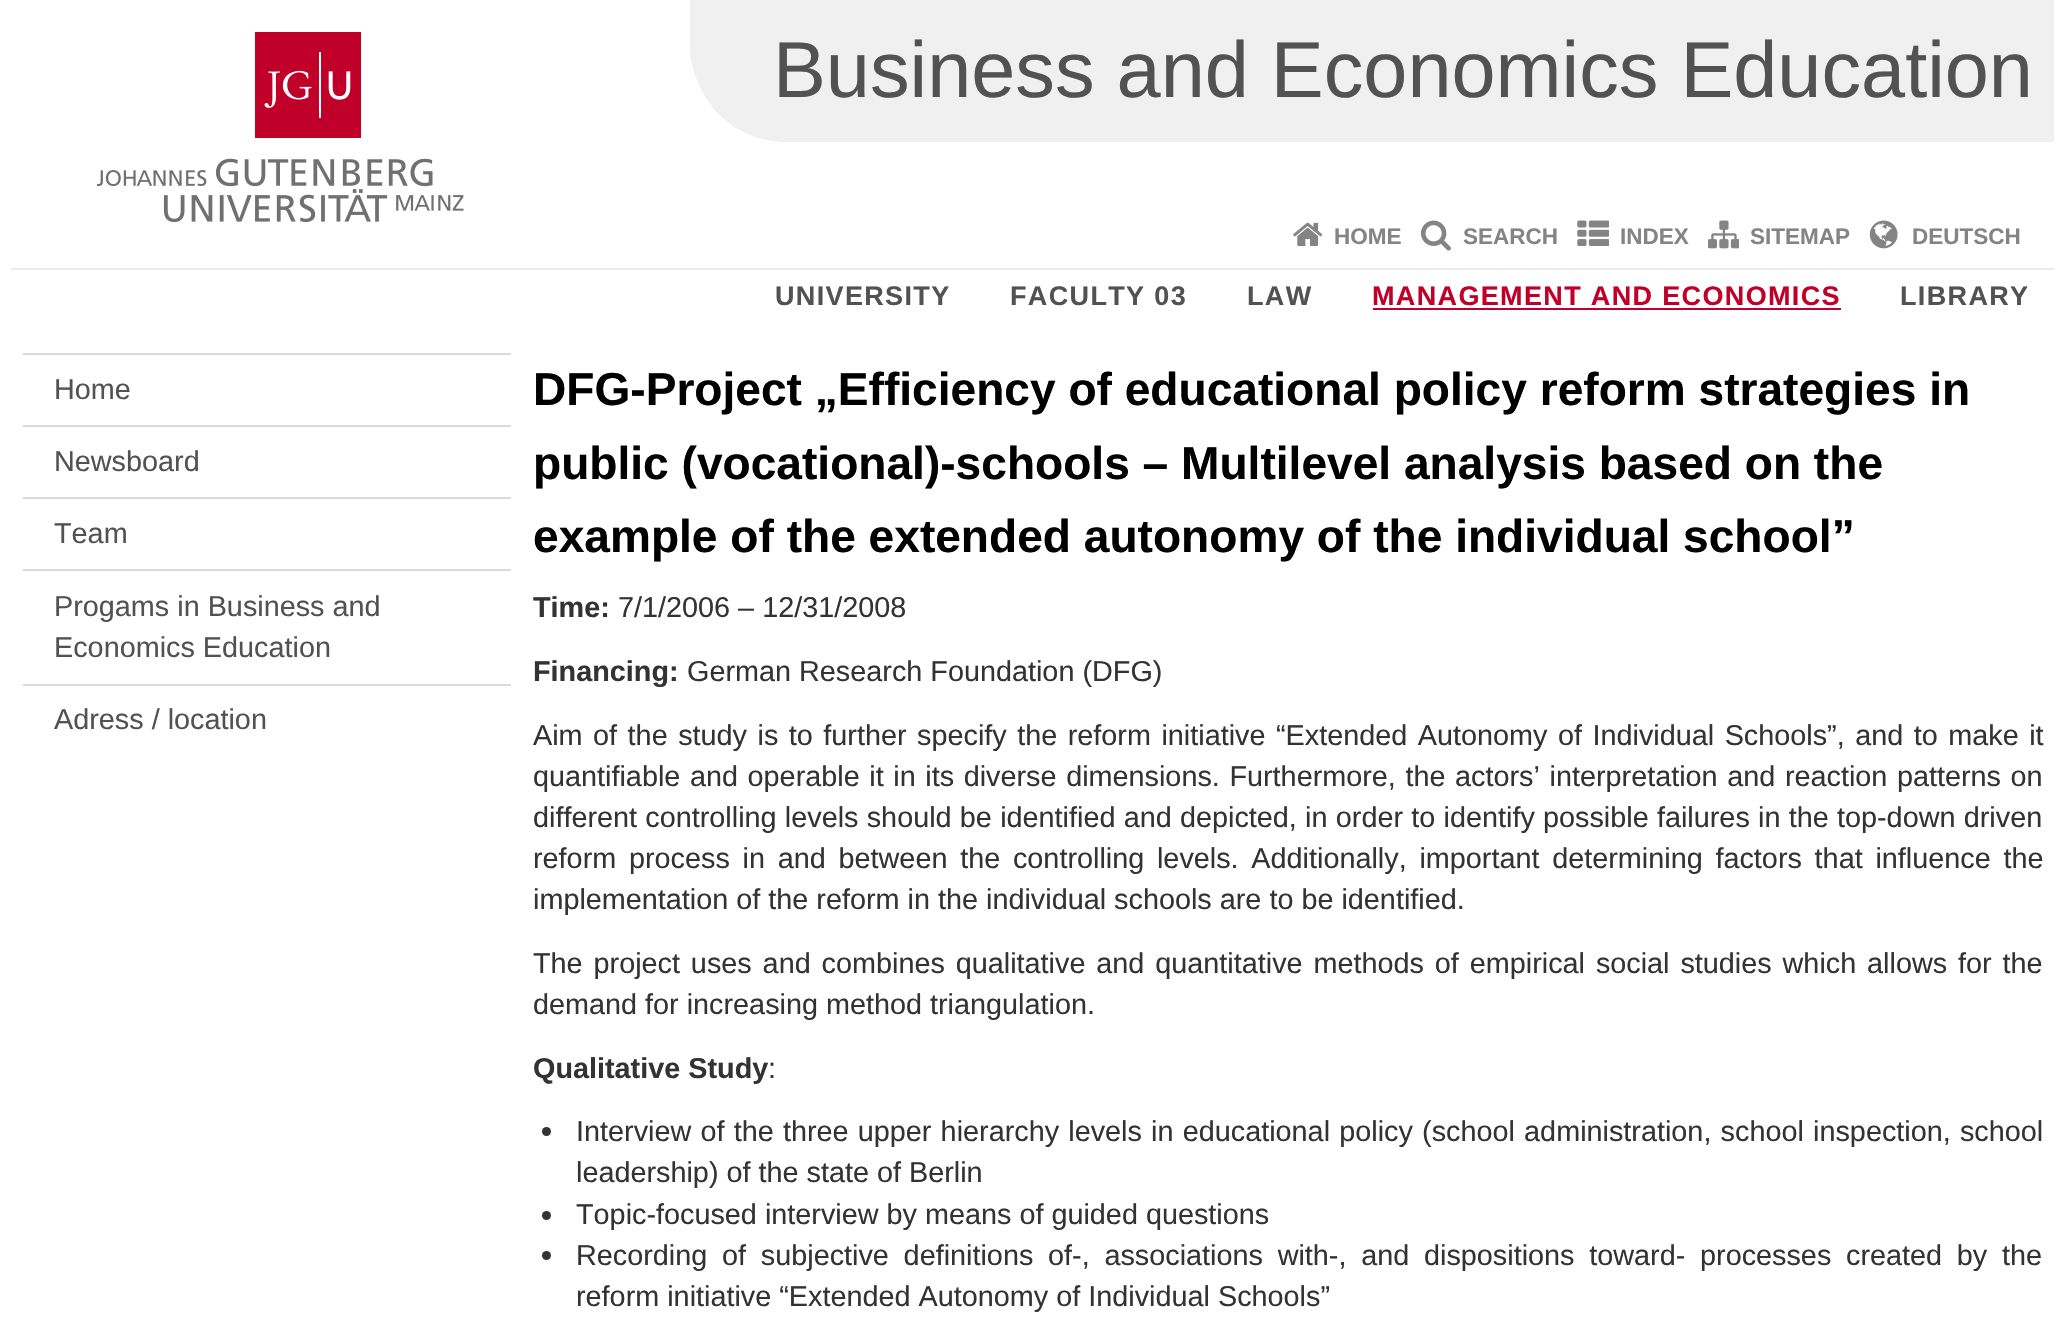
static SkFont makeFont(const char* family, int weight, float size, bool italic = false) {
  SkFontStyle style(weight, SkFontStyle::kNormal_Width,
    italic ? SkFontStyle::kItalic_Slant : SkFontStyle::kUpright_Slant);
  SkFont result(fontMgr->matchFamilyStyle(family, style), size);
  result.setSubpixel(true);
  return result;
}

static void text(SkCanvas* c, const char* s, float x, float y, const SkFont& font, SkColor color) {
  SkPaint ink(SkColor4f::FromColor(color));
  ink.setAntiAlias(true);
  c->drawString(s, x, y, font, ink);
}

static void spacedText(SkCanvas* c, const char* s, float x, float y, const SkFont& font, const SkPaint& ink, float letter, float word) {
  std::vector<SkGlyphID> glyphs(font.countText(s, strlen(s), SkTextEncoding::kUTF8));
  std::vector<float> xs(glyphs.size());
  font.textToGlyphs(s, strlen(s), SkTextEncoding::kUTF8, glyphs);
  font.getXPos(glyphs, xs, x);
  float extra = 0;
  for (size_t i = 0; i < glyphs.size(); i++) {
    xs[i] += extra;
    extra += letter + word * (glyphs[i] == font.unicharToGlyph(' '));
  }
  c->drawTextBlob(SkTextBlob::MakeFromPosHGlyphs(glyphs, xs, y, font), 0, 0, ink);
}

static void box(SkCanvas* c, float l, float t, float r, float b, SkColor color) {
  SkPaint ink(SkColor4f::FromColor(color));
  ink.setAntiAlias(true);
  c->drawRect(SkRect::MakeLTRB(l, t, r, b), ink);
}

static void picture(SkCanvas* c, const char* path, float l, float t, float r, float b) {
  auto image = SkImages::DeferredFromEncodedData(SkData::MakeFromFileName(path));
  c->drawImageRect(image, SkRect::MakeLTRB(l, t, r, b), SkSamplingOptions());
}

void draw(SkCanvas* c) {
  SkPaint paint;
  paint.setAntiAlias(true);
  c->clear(0xffffffff);
  picture(c, "img_01.png", 97, 32, 464, 223);
  c->save();
  c->clipRect(SkRect::MakeLTRB(684, 0, 2054, 203));
  paint.setColor(0xfff0f0f0);
  c->drawPath(SkPathBuilder().moveTo(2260, 142).lineTo(782, 142).cubicTo(708, 137, 690, 69, 690, 51).lineTo(690, 0).lineTo(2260, 0).close().detach(), paint);
  c->restore();
  SkFont face1 = makeFont("Liberation Sans", 400, 79.25f);
  text(c, "Business and Economics Education", 773, 97, face1, 0xff525252);
  picture(c, "img_02.png", 1293, 222, 1323, 246);
  SkFont face2 = makeFont("Liberation Sans", 700, 22.5f);
  text(c, "HOME", 1334, 244, face2, 0xff848484);
  picture(c, "img_03.png", 1420, 220, 1451, 251);
  text(c, "SEARCH", 1463, 244, face2, 0xff848484);
  picture(c, "img_04.png", 1577, 220, 1609, 246);
  text(c, "INDEX", 1620, 244, face2, 0xff848484);
  picture(c, "img_05.png", 1708, 220, 1739, 249);
  text(c, "SITEMAP", 1750, 244, face2, 0xff848484);
  picture(c, "img_06.png", 1869, 220, 1898, 249);
  text(c, "DEUTSCH", 1912, 244, face2, 0xff848484);
  box(c, 11, 268, 2054, 270, 0xffebebeb);
  SkFont face3 = makeFont("Liberation Sans", 700, 27);
  paint.setColor(0xff525252);
  spacedText(c, "UNIVERSITY", 775, 305, face3, paint, 1.35f, 0);
  spacedText(c, "FACULTY 03", 1010, 305, face3, paint, 1.35f, 0);
  spacedText(c, "LAW", 1247, 305, face3, paint, 1.35f, 0);
  paint.setColor(0xffc1002a);
  spacedText(c, "MANAGEMENT AND ECONOMICS", 1372, 305, face3, paint, 1.35f, 0);
  box(c, 1373, 308, 1841, 310, 0xffc1002a);
  paint.setColor(0xff525252);
  spacedText(c, "LIBRARY", 1900, 305, face3, paint, 1.35f, 0);
  box(c, 23, 353, 511, 355, 0xffdadada);
  SkFont face4 = makeFont("Liberation Sans", 400, 28.8f);
  text(c, "Home", 54, 399, face4, 0xff525252);
  box(c, 23, 425, 511, 427, 0xffdadada);
  text(c, "Newsboard", 54, 471, face4, 0xff525252);
  box(c, 23, 497, 511, 499, 0xffdadada);
  text(c, "Team", 54, 543, face4, 0xff525252);
  box(c, 23, 569, 511, 571, 0xffdadada);
  text(c, "Progams in Business and", 54, 616, face4, 0xff525252);
  text(c, "Economics Education", 54, 657, face4, 0xff525252);
  box(c, 23, 684, 511, 686, 0xffdadada);
  text(c, "Adress / location", 54, 729, face4, 0xff525252);
  SkFont face5 = makeFont("Liberation Sans", 700, 46.1f);
  text(c, "DFG-Project „Efficiency of educational policy reform strategies in", 533, 405, face5, 0xff000000);
  text(c, "public (vocational)-schools – Multilevel analysis based on the", 533, 479, face5, 0xff000000);
  text(c, "example of the extended autonomy of the individual school”", 533, 552, face5, 0xff000000);
  SkFont face6 = makeFont("Liberation Sans", 700, 28.8f);
  text(c, "Time:", 533, 617, face6, 0xff333333);
  text(c, "7/1/2006 – 12/31/2008", 618, 617, face4, 0xff333333);
  text(c, "Financing:", 533, 681, face6, 0xff333333);
  text(c, "German Research Foundation (DFG)", 687, 681, face4, 0xff333333);
  paint.setColor(0xff333333);
  spacedText(c, "Aim of the study is to further specify the reform initiative “Extended Autonomy of Individual Schools”, and to make it", 533, 745, face4, paint, 0, 2.5f);
  spacedText(c, "quantifiable and operable it in its diverse dimensions. Furthermore, the actors’ interpretation and reaction patterns on", 533, 786, face4, paint, 0, 1.6f);
  spacedText(c, "different controlling levels should be identified and depicted, in order to identify possible failures in the top-down driven", 533, 827, face4, paint, 0, 0.25f);
  spacedText(c, "reform process in and between the controlling levels. Additionally, important determining factors that influence the", 533, 868, face4, paint, 0, 4.75f);
  text(c, "implementation of the reform in the individual schools are to be identified.", 533, 909, face4, 0xff333333);
  spacedText(c, "The project uses and combines qualitative and quantitative methods of empirical social studies which allows for the", 533, 973, face4, paint, 0, 2.9f);
  text(c, "demand for increasing method triangulation.", 533, 1014, face4, 0xff333333);
  text(c, "Qualitative Study", 533, 1078, face6, 0xff333333);
  text(c, ":", 768, 1078, face4, 0xff333333);
  c->drawCircle(546.5f, 1131.5f, 4.5f, paint);
  spacedText(c, "Interview of the three upper hierarchy levels in educational policy (school administration, school inspection, school", 576, 1141, face4, paint, 0, 1.2f);
  text(c, "leadership) of the state of Berlin", 576, 1182, face4, 0xff333333);
  c->drawCircle(546.5f, 1215.5f, 4.5f, paint);
  text(c, "Topic-focused interview by means of guided questions", 576, 1224, face4, 0xff333333);
  c->drawCircle(546.5f, 1255.5f, 4.5f, paint);
  spacedText(c, "Recording of subjective definitions of-, associations with-, and dispositions toward- processes created by the", 576, 1265, face4, paint, 0, 6.75f);
  text(c, "reform initiative “Extended Autonomy of Individual Schools”", 576, 1306, face4, 0xff333333);
}
